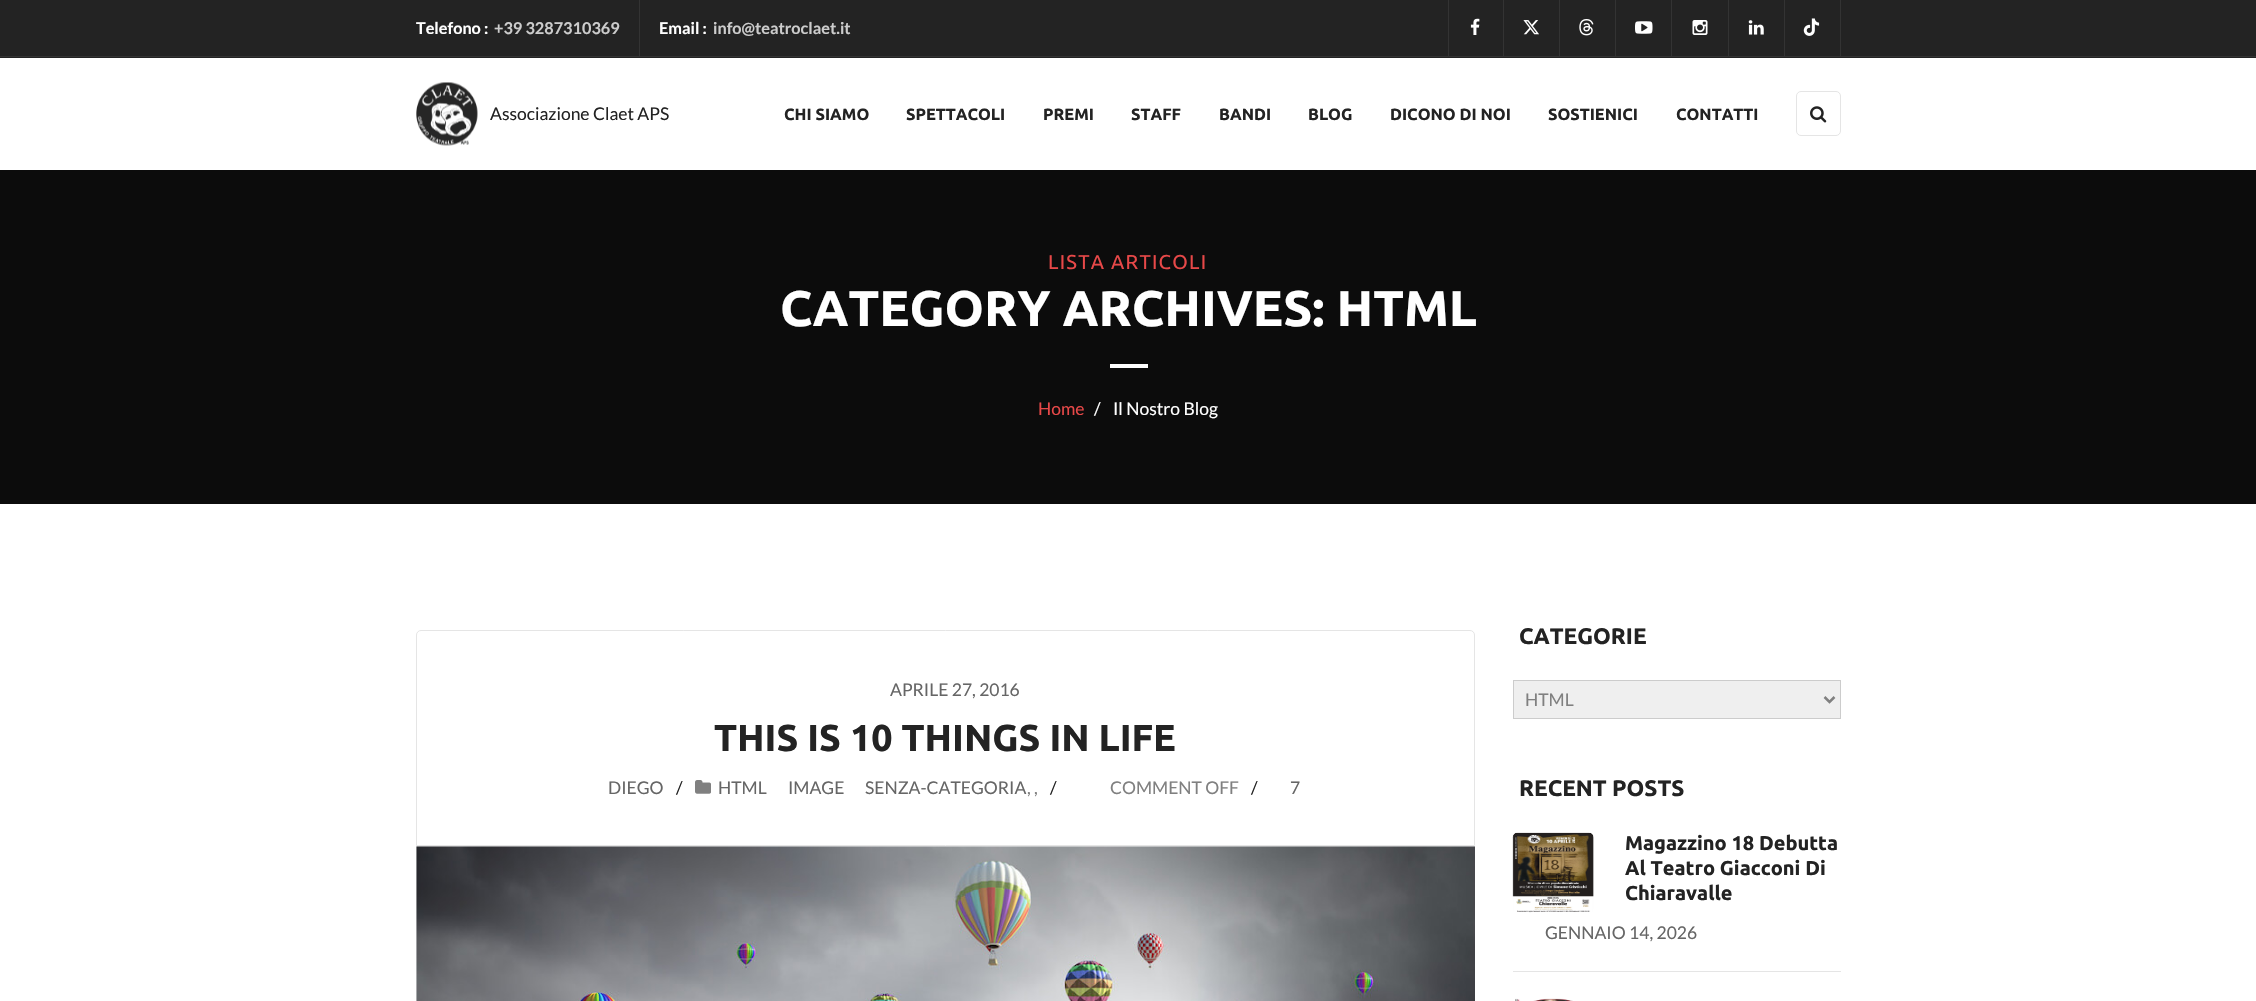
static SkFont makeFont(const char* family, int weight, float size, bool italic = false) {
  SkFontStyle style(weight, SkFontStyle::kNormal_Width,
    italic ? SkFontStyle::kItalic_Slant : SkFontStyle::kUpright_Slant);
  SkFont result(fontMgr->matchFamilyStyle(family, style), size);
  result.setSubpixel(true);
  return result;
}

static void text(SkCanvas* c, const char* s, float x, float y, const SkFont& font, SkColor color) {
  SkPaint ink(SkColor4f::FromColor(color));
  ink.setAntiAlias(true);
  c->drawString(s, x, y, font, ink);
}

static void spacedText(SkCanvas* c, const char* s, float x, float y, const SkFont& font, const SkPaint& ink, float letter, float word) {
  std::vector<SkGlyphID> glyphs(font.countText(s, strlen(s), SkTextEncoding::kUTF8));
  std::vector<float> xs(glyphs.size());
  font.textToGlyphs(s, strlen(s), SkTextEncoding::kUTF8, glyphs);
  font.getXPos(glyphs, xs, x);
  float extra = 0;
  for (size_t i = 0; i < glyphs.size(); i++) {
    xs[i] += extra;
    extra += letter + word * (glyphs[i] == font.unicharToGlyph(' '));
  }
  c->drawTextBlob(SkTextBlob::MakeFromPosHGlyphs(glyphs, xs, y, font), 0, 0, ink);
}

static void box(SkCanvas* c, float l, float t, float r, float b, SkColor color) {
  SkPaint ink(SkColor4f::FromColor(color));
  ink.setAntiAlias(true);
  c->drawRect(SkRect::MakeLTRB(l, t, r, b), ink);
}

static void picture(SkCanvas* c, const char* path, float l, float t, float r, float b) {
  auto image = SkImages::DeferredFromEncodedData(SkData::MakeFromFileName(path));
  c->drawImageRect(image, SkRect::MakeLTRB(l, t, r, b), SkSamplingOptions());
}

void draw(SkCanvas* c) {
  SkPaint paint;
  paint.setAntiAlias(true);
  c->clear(0xffffffff);
  box(c, 0, 0, 2256, 58, 0xff232323);
  box(c, 0, 56, 2256, 57, 0xff333333);
  box(c, 639, 0, 640, 56, 0xff333333);
  SkFont face1 = makeFont("Lato", 700, 16.25f);
  text(c, "Telefono :", 416, 34, face1, 0xffffffff);
  text(c, "+39 3287310369", 494, 34, face1, 0xffcccccc);
  text(c, "Email :", 659, 34, face1, 0xffffffff);
  text(c, "info@teatroclaet.it", 713, 34, face1, 0xffcccccc);
  box(c, 1503, 0, 1504, 56, 0xff333333);
  box(c, 1448, 0, 1449, 56, 0xff333333);
  picture(c, "img_01.png", 1470, 18, 1480, 35);
  box(c, 1559, 0, 1560, 56, 0xff333333);
  picture(c, "img_02.png", 1523, 20, 1539, 35);
  box(c, 1615, 0, 1616, 56, 0xff333333);
  picture(c, "img_03.png", 1579, 19, 1594, 36);
  box(c, 1671, 0, 1672, 56, 0xff333333);
  picture(c, "img_04.png", 1635, 21, 1653, 34);
  box(c, 1728, 0, 1729, 56, 0xff333333);
  picture(c, "img_05.png", 1692, 20, 1708, 35);
  box(c, 1784, 0, 1785, 56, 0xff333333);
  picture(c, "img_06.png", 1748, 20, 1764, 35);
  box(c, 1840, 0, 1841, 56, 0xff333333);
  picture(c, "img_07.png", 1803, 18, 1820, 36);
  picture(c, "img_08.png", 416, 82, 478, 146);
  SkFont face2 = makeFont("Lato", 400, 17.5f);
  text(c, "Associazione Claet APS", 490, 120, face2, 0xff232323);
  SkFont face3 = makeFont("Ubuntu", 700, 16.25f);
  text(c, "CHI SIAMO", 784, 120, face3, 0xff232323);
  text(c, "SPETTACOLI", 906, 120, face3, 0xff232323);
  text(c, "PREMI", 1043, 120, face3, 0xff232323);
  text(c, "STAFF", 1131, 120, face3, 0xff232323);
  text(c, "BANDI", 1219, 120, face3, 0xff232323);
  text(c, "BLOG", 1308, 120, face3, 0xff232323);
  text(c, "DICONO DI NOI", 1390, 120, face3, 0xff232323);
  text(c, "SOSTIENICI", 1548, 120, face3, 0xff232323);
  text(c, "CONTATTI", 1676, 120, face3, 0xff232323);
  paint.setStyle(SkPaint::kStroke_Style);
  paint.setStrokeWidth(1);
  paint.setColor(0xffe5e5e5);
  c->drawRoundRect(SkRect::MakeLTRB(1796.5f, 91.5f, 1840.5f, 135.5f), 4.5f, 4.5f, paint);
  picture(c, "img_09.png", 1810, 106, 1827, 123);
  box(c, 0, 170, 2256, 504, 0xff0c0c0c);
  SkFont face4 = makeFont("Ubuntu", 400, 20);
  paint.setStyle(SkPaint::kFill_Style);
  paint.setColor(0xffe74848);
  spacedText(c, "LISTA ARTICOLI", 1048, 269, face4, paint, 1.25f, 0);
  SkFont face5 = makeFont("Ubuntu", 700, 50);
  text(c, "CATEGORY ARCHIVES: HTML", 780, 326, face5, 0xffffffff);
  box(c, 1110, 364, 1148, 368, 0xffffffff);
  text(c, "Home", 1038, 415, face2, 0xffe74848);
  text(c, "/", 1094, 415, face2, 0xffffffff);
  text(c, "Il Nostro Blog", 1113, 415, face2, 0xffffffff);
  paint.setStyle(SkPaint::kStroke_Style);
  paint.setColor(0xffe5e5e5);
  c->drawPath(SkPathBuilder().moveTo(421, 630.5f).lineTo(1470, 630.5f).cubicTo(1472.5f, 630.5f, 1474.5f, 632.5f, 1474.5f, 635).lineTo(1474.5f, 845.5f).lineTo(416.5f, 845.5f).lineTo(416.5f, 635).cubicTo(416.5f, 632.5f, 418.5f, 630.5f, 421, 630.5f).close().detach(), paint);
  text(c, "APRILE 27, 2016", 890, 696, face2, 0xff666666);
  SkFont face6 = makeFont("Ubuntu", 700, 37.5f);
  text(c, "THIS IS 10 THINGS IN LIFE", 714, 751, face6, 0xff232323);
  text(c, "DIEGO", 608, 794, face2, 0xff666666);
  text(c, "/", 676, 794, face2, 0xff232323);
  picture(c, "img_10.png", 695, 780, 711, 794);
  text(c, "HTML", 718, 794, face2, 0xff666666);
  text(c, "IMAGE", 788, 794, face2, 0xff666666);
  text(c, "SENZA-CATEGORIA", 865, 794, face2, 0xff666666);
  text(c, ", ,", 1027, 794, face2, 0xff808080);
  text(c, "/", 1050, 794, face2, 0xff232323);
  text(c, "COMMENT OFF", 1110, 794, face2, 0xff808080);
  text(c, "/", 1251, 794, face2, 0xff232323);
  text(c, "7", 1290, 794, face2, 0xff666666);
  picture(c, "img_11.png", 416, 846, 1475, 1001);
  SkFont face7 = makeFont("Ubuntu", 700, 22.5f);
  text(c, "CATEGORIE", 1519, 644, face7, 0xff232323);
  paint.setStyle(SkPaint::kFill_Style);
  paint.setColor(0xffefefef);
  c->drawRect(SkRect::MakeLTRB(1513.5f, 680.5f, 1840.5f, 718.5f), paint);
  paint.setStyle(SkPaint::kStroke_Style);
  paint.setColor(0xffcccccc);
  c->drawRect(SkRect::MakeLTRB(1513.5f, 680.5f, 1840.5f, 718.5f), paint);
  paint.setStrokeWidth(2.5f);
  paint.setColor(0xff808080);
  c->drawPath(SkPathBuilder().moveTo(1824.5f, 697).lineTo(1829.5f, 702).lineTo(1834.5f, 697).detach(), paint);
  text(c, "HTML", 1525, 706, face2, 0xff808080);
  text(c, "RECENT POSTS", 1519, 796, face7, 0xff232323);
  box(c, 1513, 971, 1841, 972, 0xffe5e5e5);
  picture(c, "img_12.png", 1512, 832, 1594, 913);
  SkFont face8 = makeFont("Ubuntu", 700, 20);
  text(c, "Magazzino 18 Debutta", 1625, 850, face8, 0xff232323);
  text(c, "Al Teatro Giacconi Di", 1625, 875, face8, 0xff232323);
  text(c, "Chiaravalle", 1625, 900, face8, 0xff232323);
  text(c, "GENNAIO 14, 2026", 1545, 939, face2, 0xff666666);
  picture(c, "img_13.png", 1515, 998, 1573, 1001);
}
